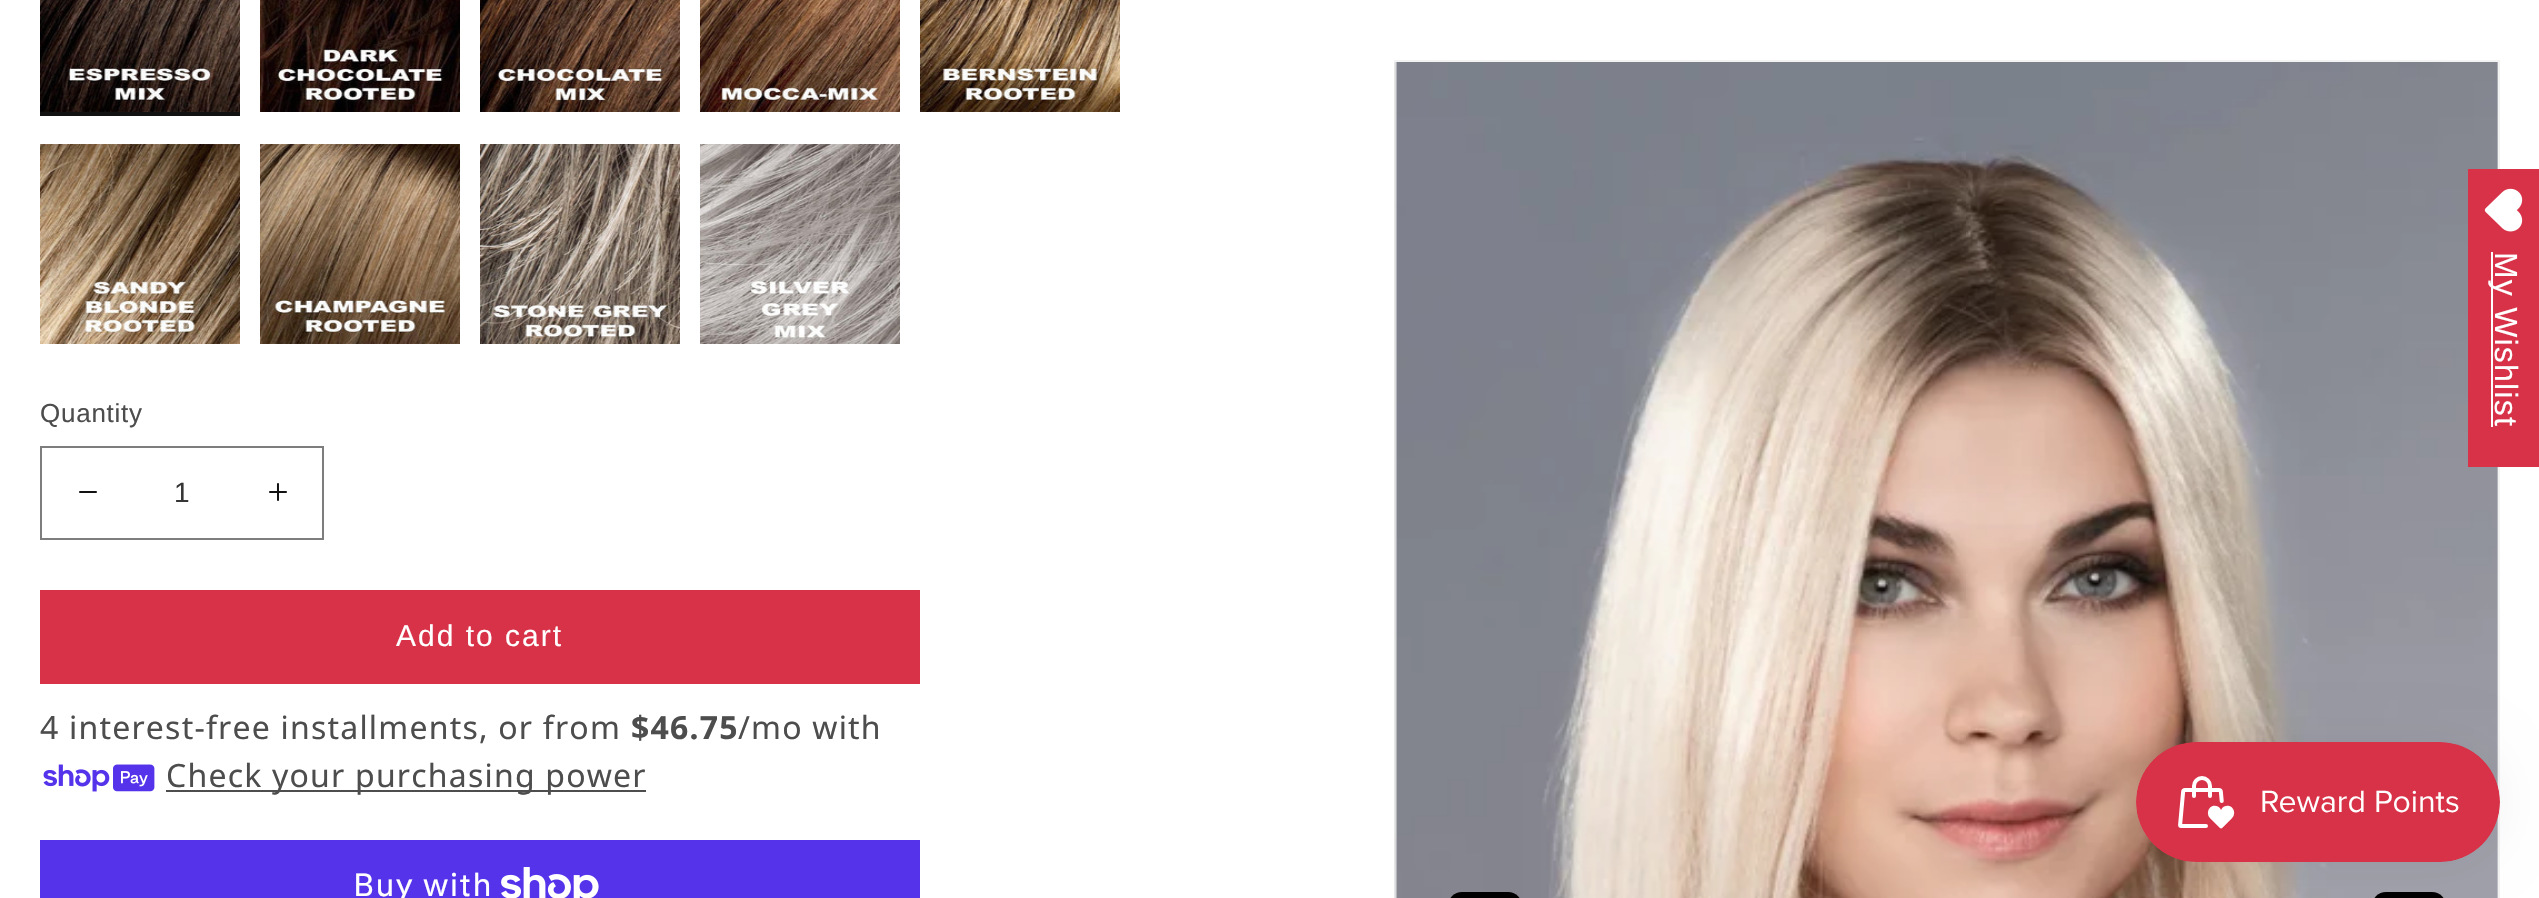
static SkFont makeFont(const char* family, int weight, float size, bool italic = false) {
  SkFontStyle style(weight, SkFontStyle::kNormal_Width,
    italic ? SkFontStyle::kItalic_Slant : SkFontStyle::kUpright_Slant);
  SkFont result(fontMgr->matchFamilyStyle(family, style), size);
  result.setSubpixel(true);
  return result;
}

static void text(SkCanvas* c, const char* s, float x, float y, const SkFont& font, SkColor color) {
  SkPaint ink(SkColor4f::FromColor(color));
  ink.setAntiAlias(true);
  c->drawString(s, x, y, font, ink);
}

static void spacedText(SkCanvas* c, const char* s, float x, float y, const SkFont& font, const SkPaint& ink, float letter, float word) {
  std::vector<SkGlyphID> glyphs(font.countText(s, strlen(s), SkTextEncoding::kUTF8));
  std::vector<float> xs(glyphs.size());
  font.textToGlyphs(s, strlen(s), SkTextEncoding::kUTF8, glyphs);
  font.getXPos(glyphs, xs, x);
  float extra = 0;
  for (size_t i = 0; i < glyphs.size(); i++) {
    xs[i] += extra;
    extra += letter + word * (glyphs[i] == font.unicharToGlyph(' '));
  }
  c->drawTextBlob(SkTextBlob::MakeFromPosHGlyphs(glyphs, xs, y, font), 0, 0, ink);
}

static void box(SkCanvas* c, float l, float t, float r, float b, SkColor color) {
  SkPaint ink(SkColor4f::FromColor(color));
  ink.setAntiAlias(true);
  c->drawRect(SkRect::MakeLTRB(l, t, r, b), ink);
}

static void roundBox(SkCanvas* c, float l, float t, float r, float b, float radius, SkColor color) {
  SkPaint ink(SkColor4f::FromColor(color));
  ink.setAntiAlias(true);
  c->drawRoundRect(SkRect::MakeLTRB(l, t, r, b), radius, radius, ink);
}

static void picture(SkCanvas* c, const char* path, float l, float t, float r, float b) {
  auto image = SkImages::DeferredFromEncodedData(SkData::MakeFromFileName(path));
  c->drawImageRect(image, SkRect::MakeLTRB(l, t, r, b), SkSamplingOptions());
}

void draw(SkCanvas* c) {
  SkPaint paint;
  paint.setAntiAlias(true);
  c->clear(0xffffffff);
  paint.setStyle(SkPaint::kStroke_Style);
  paint.setStrokeWidth(2);
  paint.setColor(0xfff3f3f3);
  c->drawRect(SkRect::MakeLTRB(1395, 61, 2499, 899), paint);
  picture(c, "img_15.png", 1394, 62, 2498, 898);
  box(c, 2468, 169, 2539, 467, 0xffd83248);
  picture(c, "img_01.png", 2484, 188, 2523, 232);
  box(c, 2491, 252, 2493, 427, 0xffffffff);
  SkFont face1 = makeFont("Arimo", 400, 32);
  paint.setStyle(SkPaint::kFill_Style);
  paint.setColor(0xffffffff);
  c->save();
  c->rotate(90, 2495, 252);
  spacedText(c, "My Wishlist", 2495, 252, face1, paint, 1.2f, 0);
  c->restore();
  box(c, 40, 112, 240, 116, 0xff121212);
  picture(c, "img_02.png", 40, 0, 240, 112);
  picture(c, "img_03.png", 260, 0, 460, 112);
  picture(c, "img_04.png", 480, 0, 680, 112);
  picture(c, "img_05.png", 700, 0, 900, 112);
  picture(c, "img_06.png", 920, 0, 1120, 112);
  picture(c, "img_07.png", 40, 144, 240, 344);
  picture(c, "img_08.png", 260, 144, 460, 344);
  picture(c, "img_09.png", 480, 144, 680, 344);
  picture(c, "img_10.png", 700, 144, 900, 344);
  SkFont face2 = makeFont("Arimo", 400, 26);
  paint.setColor(0xff4d4d4d);
  spacedText(c, "Quantity", 40, 422, face2, paint, 0.75f, 0);
  picture(c, "img_11.png", 79, 491, 97, 493);
  picture(c, "img_12.png", 269, 483, 287, 501);
  paint.setStyle(SkPaint::kStroke_Style);
  paint.setColor(0xff7d7d7d);
  c->drawRect(SkRect::MakeLTRB(41, 447, 323, 539), paint);
  SkFont face3 = makeFont("Liberation Sans", 400, 28);
  text(c, "1", 174, 502, face3, 0xff363636);
  box(c, 40, 590, 920, 684, 0xffd83248);
  SkFont face4 = makeFont("Arimo", 400, 30);
  paint.setStyle(SkPaint::kFill_Style);
  paint.setColor(0xffffffff);
  spacedText(c, "Add to cart", 396, 646, face4, paint, 2, 0);
  SkFont face5 = makeFont("Noto Sans", 400, 32);
  paint.setColor(0xff4d4d4d);
  spacedText(c, "4 interest-free installments, or from", 40, 739, face5, paint, 1.2f, 0);
  SkFont face6 = makeFont("Noto Sans", 700, 32);
  spacedText(c, "$46.75", 631, 739, face6, paint, 1.2f, 0);
  spacedText(c, "/mo with", 738, 739, face5, paint, 1.2f, 0);
  picture(c, "img_13.png", 43, 764, 155, 792);
  box(c, 166, 790, 646, 792, 0xff4d4d4d);
  spacedText(c, "Check your purchasing power", 166, 787, face5, paint, 1.2f, 0);
  box(c, 40, 840, 920, 898, 0xff5433eb);
  SkFont face7 = makeFont("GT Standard", 400, 32);
  paint.setColor(0xffffffff);
  spacedText(c, "Buy with", 353, 896, face7, paint, 1.2f, 0);
  picture(c, "img_14.png", 501, 867, 599, 898);
  roundBox(c, 1448, 892, 1522, 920, 22, 0xff000000);
  roundBox(c, 2372, 892, 2446, 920, 22, 0xff000000);
  paint.setColor(0x0d000000);
  paint.setMaskFilter(SkMaskFilter::MakeBlur(kNormal_SkBlurStyle, 25));
  c->drawRoundRect(SkRect::MakeLTRB(2136, 742, 2500, 862), 60, 60, paint);
  paint.setMaskFilter(nullptr);
  picture(c, "img_16.png", 2136, 742, 2500, 862);
}
